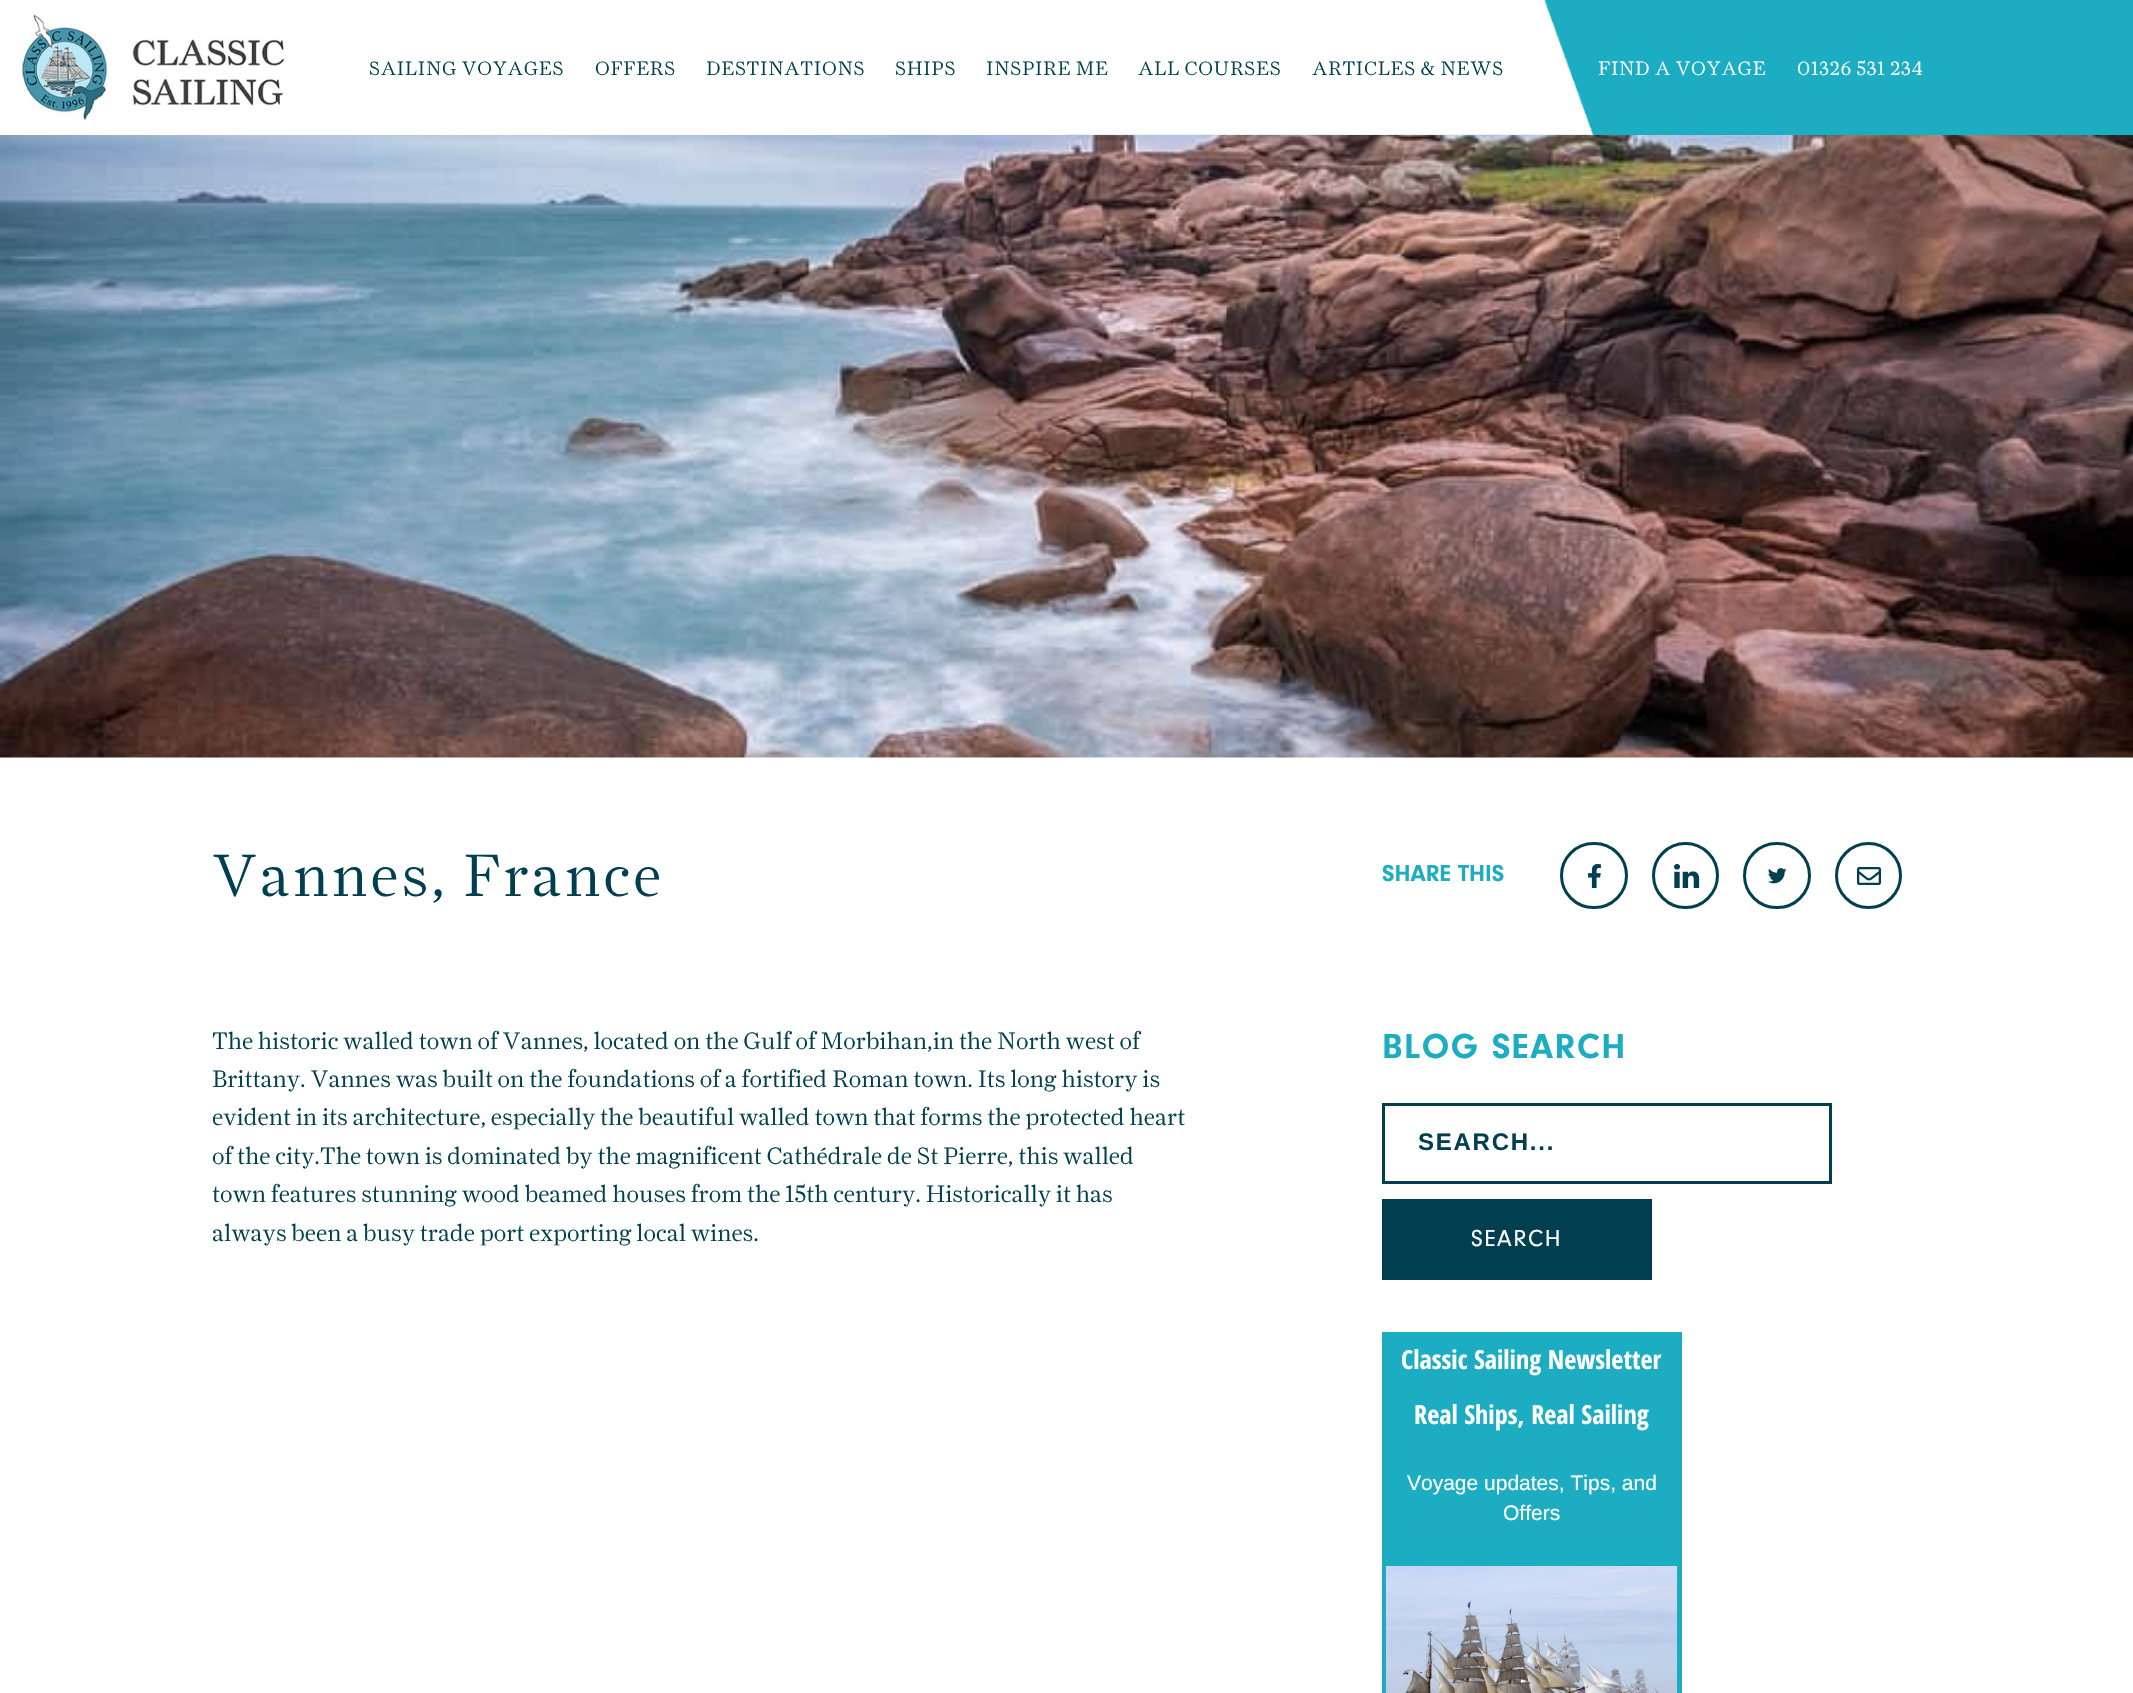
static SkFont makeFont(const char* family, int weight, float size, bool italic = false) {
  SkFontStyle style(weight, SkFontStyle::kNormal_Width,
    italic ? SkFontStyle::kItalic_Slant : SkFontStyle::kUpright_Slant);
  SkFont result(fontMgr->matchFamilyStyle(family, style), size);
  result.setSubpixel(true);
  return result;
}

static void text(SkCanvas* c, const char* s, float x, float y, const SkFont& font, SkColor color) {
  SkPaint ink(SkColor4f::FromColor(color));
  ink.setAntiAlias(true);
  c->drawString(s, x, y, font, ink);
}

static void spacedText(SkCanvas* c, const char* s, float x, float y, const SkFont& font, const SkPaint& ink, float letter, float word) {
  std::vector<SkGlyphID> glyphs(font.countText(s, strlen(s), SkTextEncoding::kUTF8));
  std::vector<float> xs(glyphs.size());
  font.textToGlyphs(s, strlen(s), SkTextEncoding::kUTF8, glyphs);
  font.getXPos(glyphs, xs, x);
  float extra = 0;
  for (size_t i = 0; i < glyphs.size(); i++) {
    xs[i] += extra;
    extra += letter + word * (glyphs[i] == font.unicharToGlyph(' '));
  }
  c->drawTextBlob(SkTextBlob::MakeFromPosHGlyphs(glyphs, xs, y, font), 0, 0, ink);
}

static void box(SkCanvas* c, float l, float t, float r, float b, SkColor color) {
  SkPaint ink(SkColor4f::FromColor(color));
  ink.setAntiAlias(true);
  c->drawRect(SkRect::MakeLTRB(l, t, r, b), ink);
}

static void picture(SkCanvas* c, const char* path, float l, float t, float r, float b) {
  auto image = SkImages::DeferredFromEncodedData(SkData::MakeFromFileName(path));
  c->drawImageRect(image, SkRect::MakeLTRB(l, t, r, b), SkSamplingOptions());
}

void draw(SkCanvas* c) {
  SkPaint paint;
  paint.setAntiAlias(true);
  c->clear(0xffffffff);
  picture(c, "img_01.png", 0, 0, 2133, 135);
  picture(c, "img_02.png", 22, 14, 285, 121);
  SkFont face1 = makeFont("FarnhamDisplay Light", 300, 19.5f);
  paint.setColor(0xff003f50);
  spacedText(c, "SAILING VOYAGES", 369, 75, face1, paint, 0.75f, 0);
  spacedText(c, "OFFERS", 595, 75, face1, paint, 0.75f, 0);
  spacedText(c, "DESTINATIONS", 706, 75, face1, paint, 0.75f, 0);
  spacedText(c, "SHIPS", 895, 75, face1, paint, 0.75f, 0);
  picture(c, "img_03.png", 1065, 0, 1594, 135);
  spacedText(c, "INSPIRE ME", 986, 75, face1, paint, 0.75f, 0);
  spacedText(c, "ALL COURSES", 1138, 75, face1, paint, 0.75f, 0);
  spacedText(c, "ARTICLES & NEWS", 1312, 75, face1, paint, 0.75f, 0);
  paint.setColor(0xffffffff);
  spacedText(c, "FIND A VOYAGE", 1598, 75, face1, paint, 0.75f, 0);
  spacedText(c, "01326 531 234", 1797, 75, face1, paint, 0.75f, 0);
  picture(c, "img_04.png", 0, 135, 2133, 758);
  SkFont face2 = makeFont("FarnhamDisplay Light", 300, 60);
  paint.setColor(0xff003f50);
  spacedText(c, "Vannes, France", 212, 896, face2, paint, 3, 0);
  SkFont face3 = makeFont("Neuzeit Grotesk", 700, 24);
  text(c, "SHARE THIS", 1382, 881, face3, 0xff1dadc2);
  paint.setStyle(SkPaint::kStroke_Style);
  paint.setStrokeWidth(3);
  c->drawRoundRect(SkRect::MakeLTRB(1561.5f, 843.5f, 1626.5f, 907.5f), 32, 32, paint);
  picture(c, "img_05.png", 1588, 864, 1601, 888);
  c->drawCircle(1685.5f, 875.5f, 32, paint);
  picture(c, "img_06.png", 1674, 864, 1700, 888);
  c->drawRoundRect(SkRect::MakeLTRB(1744.5f, 843.5f, 1809.5f, 907.5f), 32, 32, paint);
  picture(c, "img_07.png", 1768, 868, 1787, 884);
  c->drawCircle(1868.5f, 875.5f, 32, paint);
  picture(c, "img_08.png", 1857, 867, 1881, 885);
  SkFont face4 = makeFont("FarnhamDisplay Light", 300, 24);
  text(c, "The historic walled town of Vannes, located on the Gulf of Morbihan,in the North west of", 212, 1049, face4, 0xff003f50);
  text(c, "Brittany. Vannes was built on the foundations of a fortified Roman town. Its long history is", 212, 1087, face4, 0xff003f50);
  text(c, "evident in its architecture, especially the beautiful walled town that forms the protected heart", 212, 1125, face4, 0xff003f50);
  text(c, "of the city.The town is dominated by the magnificent Cathédrale de St Pierre, this walled", 212, 1164, face4, 0xff003f50);
  text(c, "town features stunning wood beamed houses from the 15th century. Historically it has", 212, 1202, face4, 0xff003f50);
  text(c, "always been a busy trade port exporting local wines.", 212, 1241, face4, 0xff003f50);
  SkFont face5 = makeFont("Neuzeit Grotesk", 700, 36);
  paint.setStyle(SkPaint::kFill_Style);
  paint.setColor(0xff1dadc2);
  spacedText(c, "BLOG SEARCH", 1382, 1058, face5, paint, 1.5f, 0);
  paint.setStyle(SkPaint::kStroke_Style);
  paint.setColor(0xff003f50);
  c->drawRect(SkRect::MakeLTRB(1383.5f, 1104.5f, 1830.5f, 1182.5f), paint);
  SkFont face6 = makeFont("Liberation Sans", 700, 24);
  paint.setStyle(SkPaint::kFill_Style);
  spacedText(c, "SEARCH...", 1418, 1150, face6, paint, 1.75f, 0);
  box(c, 1382, 1199, 1652, 1280, 0xff003f50);
  SkFont face7 = makeFont("Neuzeit Grotesk", 400, 24);
  paint.setColor(0xffffffff);
  spacedText(c, "SEARCH", 1471, 1246, face7, paint, 1.5f, 0);
  box(c, 1382, 1332, 1682, 1693, 0xff1dadc2);
  SkFont face8 = makeFont("Open Sans Condensed", 700, 26.25f);
  text(c, "Classic Sailing Newsletter", 1401, 1369, face8, 0xffffffff);
  text(c, "Real Ships, Real Sailing", 1414, 1424, face8, 0xffffffff);
  SkFont face9 = makeFont("Liberation Sans", 400, 21);
  text(c, "Voyage updates, Tips, and", 1407, 1490, face9, 0xffffffff);
  text(c, "Offers", 1503, 1520, face9, 0xffffffff);
  picture(c, "img_09.png", 1386, 1566, 1677, 1693);
}
